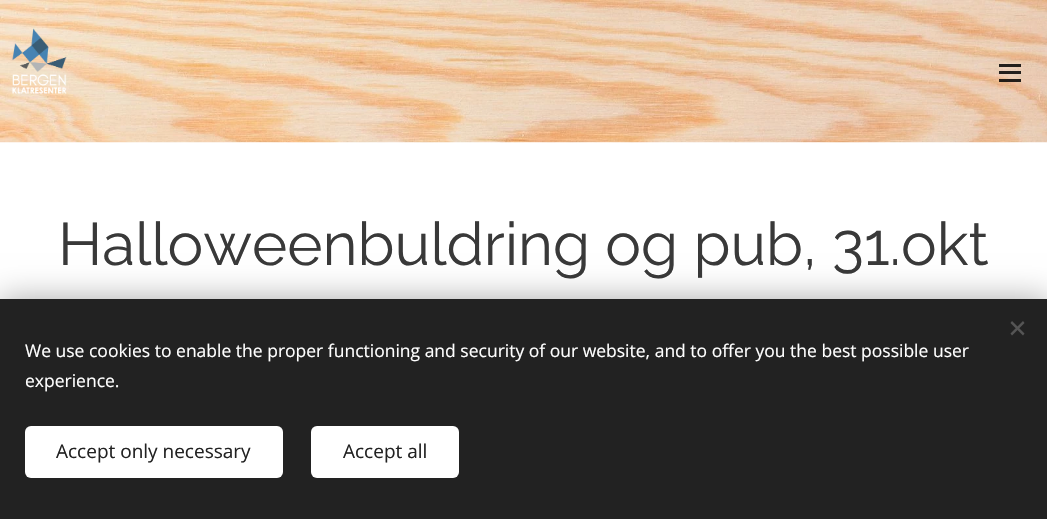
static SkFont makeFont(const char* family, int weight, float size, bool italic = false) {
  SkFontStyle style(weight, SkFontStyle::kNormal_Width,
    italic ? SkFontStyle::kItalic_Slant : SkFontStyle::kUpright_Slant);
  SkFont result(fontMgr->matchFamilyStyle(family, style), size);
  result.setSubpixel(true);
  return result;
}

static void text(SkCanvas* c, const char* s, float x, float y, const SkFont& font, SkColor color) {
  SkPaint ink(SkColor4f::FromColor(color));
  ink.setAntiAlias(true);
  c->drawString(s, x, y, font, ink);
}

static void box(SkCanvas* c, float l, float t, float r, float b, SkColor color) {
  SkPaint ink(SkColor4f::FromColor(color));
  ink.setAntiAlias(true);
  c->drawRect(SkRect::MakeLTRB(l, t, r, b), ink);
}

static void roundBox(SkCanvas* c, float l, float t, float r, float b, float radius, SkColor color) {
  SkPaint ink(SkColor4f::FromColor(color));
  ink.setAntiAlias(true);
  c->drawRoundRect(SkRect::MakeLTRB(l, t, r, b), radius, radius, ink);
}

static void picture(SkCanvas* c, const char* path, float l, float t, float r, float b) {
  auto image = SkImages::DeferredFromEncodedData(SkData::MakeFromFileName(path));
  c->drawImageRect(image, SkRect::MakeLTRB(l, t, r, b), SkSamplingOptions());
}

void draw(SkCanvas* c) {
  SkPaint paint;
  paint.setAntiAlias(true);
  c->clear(0xffffffff);
  picture(c, "img_01.png", 0, 0, 1047, 143);
  picture(c, "img_02.png", 12, 28, 67, 94);
  box(c, 999, 71, 1021, 74, 0xd9000000);
  box(c, 999, 64, 1021, 67, 0xd9000000);
  box(c, 999, 79, 1021, 82, 0xd9000000);
  SkFont face1 = makeFont("Raleway", 400, 60);
  text(c, "Halloweenbuldring og pub, 31.okt", 58, 265, face1, 0xff393939);
  paint.setColor(0x54000000);
  paint.setMaskFilter(SkMaskFilter::MakeBlur(kNormal_SkBlurStyle, 15.5f));
  c->drawRect(SkRect::MakeLTRB(0, 299, 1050, 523), paint);
  paint.setMaskFilter(nullptr);
  box(c, 0, 299, 1047, 519, 0xff222222);
  paint.setColor(0xff555555);
  c->drawPath(SkPathBuilder().moveTo(1010.5f, 333.5f).lineTo(1023, 321).lineTo(1024.5f, 323).lineTo(1012, 335.5f).close().detach(), paint);
  c->drawPath(SkPathBuilder().moveTo(1012, 321).lineTo(1024.5f, 333.5f).lineTo(1023, 335.5f).lineTo(1010.5f, 323).close().detach(), paint);
  SkFont face2 = makeFont("Open Sans", 400, 17.5f);
  text(c, "We use cookies to enable the proper functioning and security of our website, and to offer you the best possible user", 25, 357, face2, 0xffffffff);
  text(c, "experience.", 25, 387, face2, 0xffffffff);
  roundBox(c, 25, 426, 283, 478, 6, 0xffffffff);
  SkFont face3 = makeFont("Open Sans", 400, 19);
  text(c, "Accept only necessary", 56, 458, face3, 0xff222222);
  roundBox(c, 311, 426, 459, 478, 6, 0xffffffff);
  text(c, "Accept all", 343, 458, face3, 0xff222222);
}
